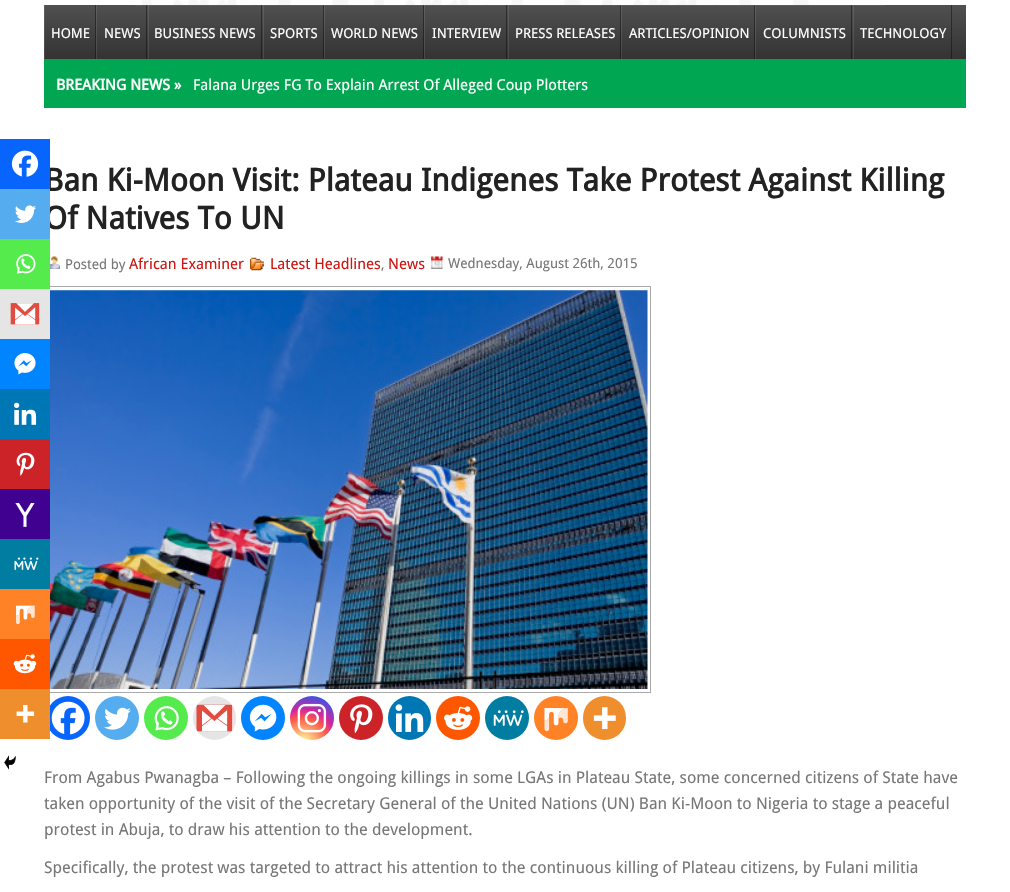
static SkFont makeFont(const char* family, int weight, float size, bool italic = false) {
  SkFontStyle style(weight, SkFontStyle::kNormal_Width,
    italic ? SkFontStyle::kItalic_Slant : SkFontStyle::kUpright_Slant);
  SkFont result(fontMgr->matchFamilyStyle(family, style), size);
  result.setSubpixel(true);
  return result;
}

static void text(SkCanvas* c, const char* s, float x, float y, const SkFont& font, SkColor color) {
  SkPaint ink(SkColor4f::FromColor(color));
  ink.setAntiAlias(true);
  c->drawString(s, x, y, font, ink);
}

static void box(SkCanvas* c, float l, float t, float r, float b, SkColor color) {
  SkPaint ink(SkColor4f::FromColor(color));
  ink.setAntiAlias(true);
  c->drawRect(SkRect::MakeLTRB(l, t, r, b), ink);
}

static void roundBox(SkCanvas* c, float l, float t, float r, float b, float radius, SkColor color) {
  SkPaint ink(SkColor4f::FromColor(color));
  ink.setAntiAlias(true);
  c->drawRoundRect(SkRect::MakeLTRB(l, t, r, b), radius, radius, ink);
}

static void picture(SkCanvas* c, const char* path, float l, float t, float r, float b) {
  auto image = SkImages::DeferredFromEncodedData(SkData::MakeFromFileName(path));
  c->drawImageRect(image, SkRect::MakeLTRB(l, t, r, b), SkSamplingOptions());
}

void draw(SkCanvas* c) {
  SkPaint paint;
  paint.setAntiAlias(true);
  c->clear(0xffffffff);
  {
    const SkColor colors[] = {0xff505050, 0xff333333};
    const float stops[] = {0, 1};
    const SkPoint ends[] = {{505, 5}, {505, 59}};
    paint.setShader(SkGradientShader::MakeLinear(ends, colors, stops, 2, SkTileMode::kClamp));
    paint.setAlpha(255);
  }
  c->drawRect(SkRect::MakeLTRB(45, 5, 966, 59), paint);
  picture(c, "img_01.png", 135, 0, 885, 6);
  {
    const SkColor colors[] = {0xff303030, 0xff1f1f1f};
    const float stops[] = {0, 1};
    const SkPoint ends[] = {{505, 5}, {505, 59}};
    paint.setShader(SkGradientShader::MakeLinear(ends, colors, stops, 2, SkTileMode::kClamp));
    paint.setAlpha(255);
  }
  c->drawRect(SkRect::MakeLTRB(951, 5, 952, 59), paint);
  {
    const SkColor colors[] = {0xff626262, 0xff474747};
    const float stops[] = {0, 1};
    const SkPoint ends[] = {{505, 5}, {505, 59}};
    paint.setShader(SkGradientShader::MakeLinear(ends, colors, stops, 2, SkTileMode::kClamp));
    paint.setAlpha(255);
  }
  c->drawRect(SkRect::MakeLTRB(96, 5, 97, 59), paint);
  c->drawRect(SkRect::MakeLTRB(44, 5, 45, 59), paint);
  {
    const SkColor colors[] = {0xff303030, 0xff1f1f1f};
    const float stops[] = {0, 1};
    const SkPoint ends[] = {{505, 5}, {505, 59}};
    paint.setShader(SkGradientShader::MakeLinear(ends, colors, stops, 2, SkTileMode::kClamp));
    paint.setAlpha(255);
  }
  c->drawRect(SkRect::MakeLTRB(95, 5, 96, 59), paint);
  box(c, 44, 59, 966, 108, 0xff00a651);
  SkFont face1 = makeFont("Droid Sans", 400, 13.75f);
  text(c, "HOME", 51, 38, face1, 0xffffffff);
  box(c, 146, 5, 147, 59, 0x66000000);
  text(c, "NEWS", 104, 38, face1, 0xffffffff);
  box(c, 261, 5, 262, 59, 0x66000000);
  box(c, 148, 5, 149, 59, 0x1affffff);
  text(c, "BUSINESS NEWS", 154, 38, face1, 0xffffffff);
  box(c, 323, 5, 324, 59, 0x66000000);
  box(c, 263, 5, 264, 59, 0x1affffff);
  text(c, "SPORTS", 270, 38, face1, 0xffffffff);
  box(c, 423, 5, 424, 59, 0x66000000);
  box(c, 324, 5, 325, 59, 0x1affffff);
  text(c, "WORLD NEWS", 331, 38, face1, 0xffffffff);
  box(c, 506, 5, 507, 59, 0x66000000);
  box(c, 424, 5, 425, 59, 0x1affffff);
  text(c, "INTERVIEW", 432, 38, face1, 0xffffffff);
  box(c, 620, 5, 621, 59, 0x66000000);
  box(c, 508, 5, 509, 59, 0x1affffff);
  text(c, "PRESS RELEASES", 515, 38, face1, 0xffffffff);
  box(c, 754, 5, 755, 59, 0x66000000);
  box(c, 621, 5, 622, 59, 0x1affffff);
  text(c, "ARTICLES/OPINION", 629, 38, face1, 0xffffffff);
  box(c, 851, 5, 852, 59, 0x66000000);
  box(c, 755, 5, 756, 59, 0x1affffff);
  text(c, "COLUMNISTS", 763, 38, face1, 0xffffffff);
  box(c, 853, 5, 854, 59, 0x1affffff);
  text(c, "TECHNOLOGY", 860, 38, face1, 0xffffffff);
  SkFont face2 = makeFont("Droid Sans", 700, 15);
  text(c, "BREAKING NEWS »", 56, 90, face2, 0xffffffff);
  SkFont face3 = makeFont("Droid Sans", 400, 15);
  text(c, "Falana Urges FG To Explain Arrest Of Alleged Coup Plotters", 193, 90, face3, 0xffffffff);
  SkFont face4 = makeFont("Droid Sans", 700, 31.25f);
  text(c, "Ban Ki-Moon Visit: Plateau Indigenes Take Protest Against Killing", 44, 191, face4, 0xff222222);
  box(c, 0, 139, 50, 189, 0xff0765fe);
  picture(c, "img_02.png", 11, 150, 39, 177);
  text(c, "Of Natives To UN", 44, 229, face4, 0xff222222);
  box(c, 0, 189, 50, 239, 0xff55acee);
  picture(c, "img_03.png", 15, 205, 36, 223);
  paint.setStyle(SkPaint::kStroke_Style);
  paint.setStrokeWidth(1);
  paint.setShader(nullptr);
  paint.setColor(0xffaaaaaa);
  c->drawRect(SkRect::MakeLTRB(44.5f, 286.5f, 650.5f, 692.5f), paint);
  box(c, 0, 239, 50, 289, 0xff55eb4c);
  picture(c, "img_04.png", 16, 254, 36, 274);
  box(c, 0, 289, 50, 339, 0xffe5e5e5);
  picture(c, "img_05.png", 10, 303, 40, 325);
  box(c, 0, 339, 50, 389, 0xff0084ff);
  picture(c, "img_06.png", 14, 353, 36, 375);
  box(c, 0, 389, 50, 439, 0xff0077b5);
  picture(c, "img_07.png", 14, 402, 37, 425);
  box(c, 0, 439, 50, 489, 0xffcc2329);
  picture(c, "img_08.png", 16, 452, 35, 476);
  box(c, 0, 489, 50, 539, 0xff400090);
  picture(c, "img_09.png", 15, 502, 35, 527);
  box(c, 0, 539, 50, 589, 0xff007da1);
  picture(c, "img_10.png", 14, 557, 39, 570);
  box(c, 0, 589, 50, 639, 0xffff8226);
  picture(c, "img_11.png", 16, 605, 35, 625);
  box(c, 0, 639, 50, 689, 0xffff5700);
  picture(c, "img_12.png", 13, 654, 37, 674);
  paint.setStyle(SkPaint::kFill_Style);
  paint.setColor(0xff0765fe);
  c->drawCircle(68, 718, 22, paint);
  box(c, 0, 689, 50, 739, 0xffee8e2d);
  picture(c, "img_13.png", 16, 705, 35, 723);
  picture(c, "img_14.png", 4, 755, 16, 770);
  picture(c, "img_15.png", 50, 256, 60, 269);
  text(c, "Posted by", 65, 269, face1, 0xff777777);
  text(c, "African Examiner", 129, 269, face3, 0xffcd1713);
  picture(c, "img_16.png", 250, 257, 264, 271);
  text(c, "Latest Headlines", 270, 269, face3, 0xffcd1713);
  text(c, ",", 381, 269, face1, 0xff777777);
  text(c, "News", 388, 269, face3, 0xffcd1713);
  picture(c, "img_17.png", 431, 256, 443, 269);
  text(c, "Wednesday, August 26th, 2015", 448, 268, face1, 0xff777777);
  picture(c, "img_18.png", 50, 290, 648, 689);
  picture(c, "img_19.png", 51, 701, 85, 735);
  paint.setColor(0xff55acee);
  c->drawCircle(117, 718, 22, paint);
  picture(c, "img_20.png", 104, 707, 131, 730);
  paint.setColor(0xff55eb4c);
  c->drawCircle(166, 718, 22, paint);
  picture(c, "img_21.png", 154, 706, 179, 731);
  roundBox(c, 193, 696, 236, 740, 21.5f, 0xffe5e5e5);
  picture(c, "img_22.png", 196, 704, 233, 732);
  paint.setColor(0xff0084ff);
  c->drawCircle(263, 718, 22, paint);
  picture(c, "img_23.png", 249, 704, 277, 732);
  {
    const SkColor colors[] = {0xfffdf497, 0xfffdf497, 0xfffd5949, 0xffd6249f, 0xff285aeb};
    const float stops[] = {0, 0.05f, 0.45f, 0.6f, 0.9f};
    paint.setShader(SkGradientShader::MakeRadial({303, 743}, 56, colors, stops, 5, SkTileMode::kClamp));
    paint.setAlpha(255);
  }
  c->drawCircle(312, 718, 22, paint);
  picture(c, "img_24.png", 297, 703, 327, 733);
  paint.setShader(nullptr);
  paint.setColor(0xffcc2329);
  c->drawCircle(361, 718, 22, paint);
  picture(c, "img_25.png", 350, 704, 373, 734);
  roundBox(c, 388, 696, 431, 740, 21.5f, 0xff0077b5);
  picture(c, "img_26.png", 395, 704, 424, 732);
  paint.setColor(0xffff5700);
  c->drawCircle(458, 718, 22, paint);
  picture(c, "img_27.png", 444, 706, 473, 730);
  paint.setColor(0xff007da1);
  c->drawCircle(507, 718, 22, paint);
  picture(c, "img_28.png", 493, 710, 524, 726);
  paint.setColor(0xffff8226);
  c->drawCircle(556, 718, 22, paint);
  picture(c, "img_29.png", 544, 708, 568, 732);
  roundBox(c, 583, 696, 626, 740, 21.5f, 0xffee8e2d);
  picture(c, "img_30.png", 593, 707, 616, 730);
  SkFont face5 = makeFont("Droid Sans", 400, 16.25f);
  text(c, "From Agabus Pwanagba – Following the ongoing killings in some LGAs in Plateau State, some concerned citizens of State have", 44, 783, face5, 0xff777777);
  text(c, "taken opportunity of the visit of the Secretary General of the United Nations (UN) Ban Ki-Moon to Nigeria to stage a peaceful", 44, 809, face5, 0xff777777);
  text(c, "protest in Abuja, to draw his attention to the development.", 44, 835, face5, 0xff777777);
  text(c, "Specifically, the protest was targeted to attract his attention to the continuous killing of Plateau citizens, by Fulani militia", 44, 873, face5, 0xff777777);
}
